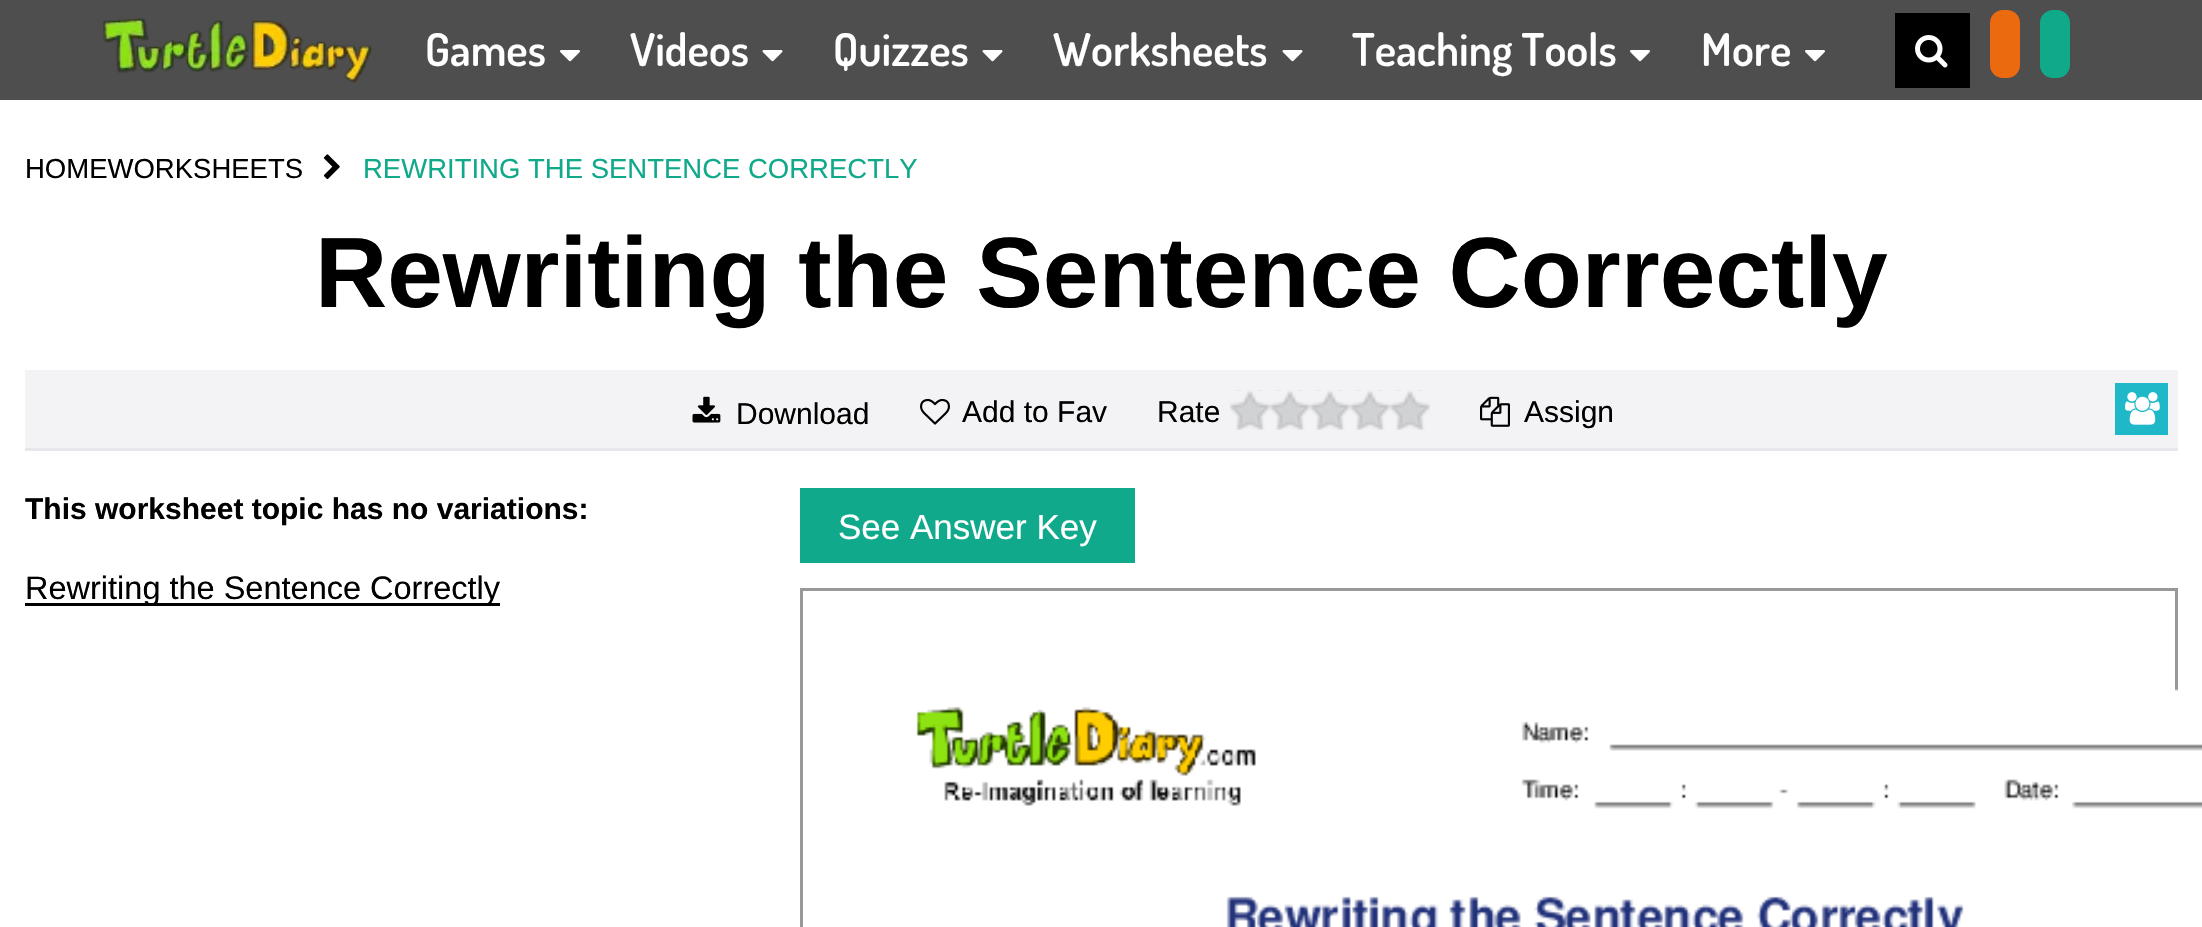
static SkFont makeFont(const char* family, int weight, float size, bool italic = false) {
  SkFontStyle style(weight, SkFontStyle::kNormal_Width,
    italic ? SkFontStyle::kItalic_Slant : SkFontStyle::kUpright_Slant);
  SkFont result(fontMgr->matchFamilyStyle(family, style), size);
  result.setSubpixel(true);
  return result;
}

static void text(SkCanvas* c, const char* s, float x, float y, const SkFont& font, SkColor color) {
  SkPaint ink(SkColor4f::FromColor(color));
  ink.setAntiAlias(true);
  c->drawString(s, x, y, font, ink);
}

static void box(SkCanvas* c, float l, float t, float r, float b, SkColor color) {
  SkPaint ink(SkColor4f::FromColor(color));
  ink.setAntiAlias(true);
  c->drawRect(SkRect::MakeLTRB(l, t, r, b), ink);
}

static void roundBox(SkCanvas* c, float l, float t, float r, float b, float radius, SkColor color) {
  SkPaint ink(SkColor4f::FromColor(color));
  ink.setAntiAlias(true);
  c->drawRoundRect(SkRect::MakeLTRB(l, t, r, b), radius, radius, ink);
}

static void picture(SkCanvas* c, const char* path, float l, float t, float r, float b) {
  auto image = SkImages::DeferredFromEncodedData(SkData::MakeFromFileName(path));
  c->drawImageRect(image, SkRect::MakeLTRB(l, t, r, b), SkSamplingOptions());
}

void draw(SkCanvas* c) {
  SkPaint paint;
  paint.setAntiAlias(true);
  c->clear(0xffffffff);
  box(c, 0, 0, 2202, 100, 0xff4e4e4e);
  picture(c, "img_01.png", 103, 17, 372, 83);
  SkFont face1 = makeFont("Dosis", 600, 45);
  text(c, "Games", 425, 66, face1, 0xffffffff);
  picture(c, "img_02.png", 560, 50, 580, 62);
  text(c, "Videos", 630, 66, face1, 0xffffffff);
  picture(c, "img_03.png", 762, 50, 783, 62);
  text(c, "Quizzes", 833, 66, face1, 0xffffffff);
  picture(c, "img_03.png", 982, 50, 1003, 62);
  text(c, "Worksheets", 1053, 66, face1, 0xffffffff);
  picture(c, "img_03.png", 1282, 50, 1303, 62);
  text(c, "Teaching Tools", 1352, 66, face1, 0xffffffff);
  picture(c, "img_02.png", 1630, 50, 1650, 62);
  text(c, "More", 1701, 66, face1, 0xffffffff);
  picture(c, "img_02.png", 1805, 50, 1825, 62);
  box(c, 1895, 13, 1970, 88, 0xff000000);
  picture(c, "img_04.png", 1915, 35, 1948, 68);
  roundBox(c, 1990, 10, 2020, 78, 13, 0xffeb690f);
  roundBox(c, 2040, 10, 2070, 78, 13, 0xff10a98a);
  SkFont face2 = makeFont("Liberation Sans", 400, 27.5f);
  text(c, "HOMEWORKSHEETS", 25, 178, face2, 0xff000000);
  picture(c, "img_05.png", 323, 154, 340, 179);
  text(c, "REWRITING THE SENTENCE CORRECTLY", 363, 178, face2, 0xff10a98a);
  SkFont face3 = makeFont("Liberation Sans", 700, 100);
  text(c, "Rewriting the Sentence Correctly", 315, 307, face3, 0xff000000);
  box(c, 25, 370, 2178, 448, 0xfff3f3f5);
  picture(c, "img_06.png", 692, 396, 721, 423);
  SkFont face4 = makeFont("Liberation Sans", 400, 30);
  text(c, "Download", 736, 424, face4, 0xff000000);
  picture(c, "img_07.png", 920, 398, 950, 425);
  text(c, "Add to Fav", 962, 422, face4, 0xff000000);
  text(c, "Rate", 1157, 422, face4, 0xff000000);
  picture(c, "img_08.png", 1230, 390, 1430, 430);
  picture(c, "img_09.png", 1480, 396, 1510, 427);
  text(c, "Assign", 1524, 422, face4, 0xff000000);
  box(c, 2115, 383, 2168, 435, 0xff1fb8c9);
  picture(c, "img_10.png", 2125, 392, 2160, 425);
  box(c, 25, 448, 2178, 451, 0xffe7e7eb);
  SkFont face5 = makeFont("Liberation Sans", 700, 30);
  text(c, "This worksheet topic has no variations:", 25, 519, face5, 0xff000000);
  box(c, 25, 603, 500, 606, 0xff000000);
  SkFont face6 = makeFont("Liberation Sans", 400, 32.5f);
  text(c, "Rewriting the Sentence Correctly", 25, 599, face6, 0xff000000);
  box(c, 800, 488, 1135, 563, 0xff10a98b);
  SkFont face7 = makeFont("Liberation Sans", 400, 35);
  text(c, "See Answer Key", 838, 539, face7, 0xffffffff);
  paint.setStyle(SkPaint::kStroke_Style);
  paint.setStrokeWidth(3);
  paint.setColor(0xff999999);
  c->drawRect(SkRect::MakeLTRB(801.5f, 589.5f, 2176.5f, 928.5f), paint);
  picture(c, "img_11.png", 916, 689, 2202, 927);
}
